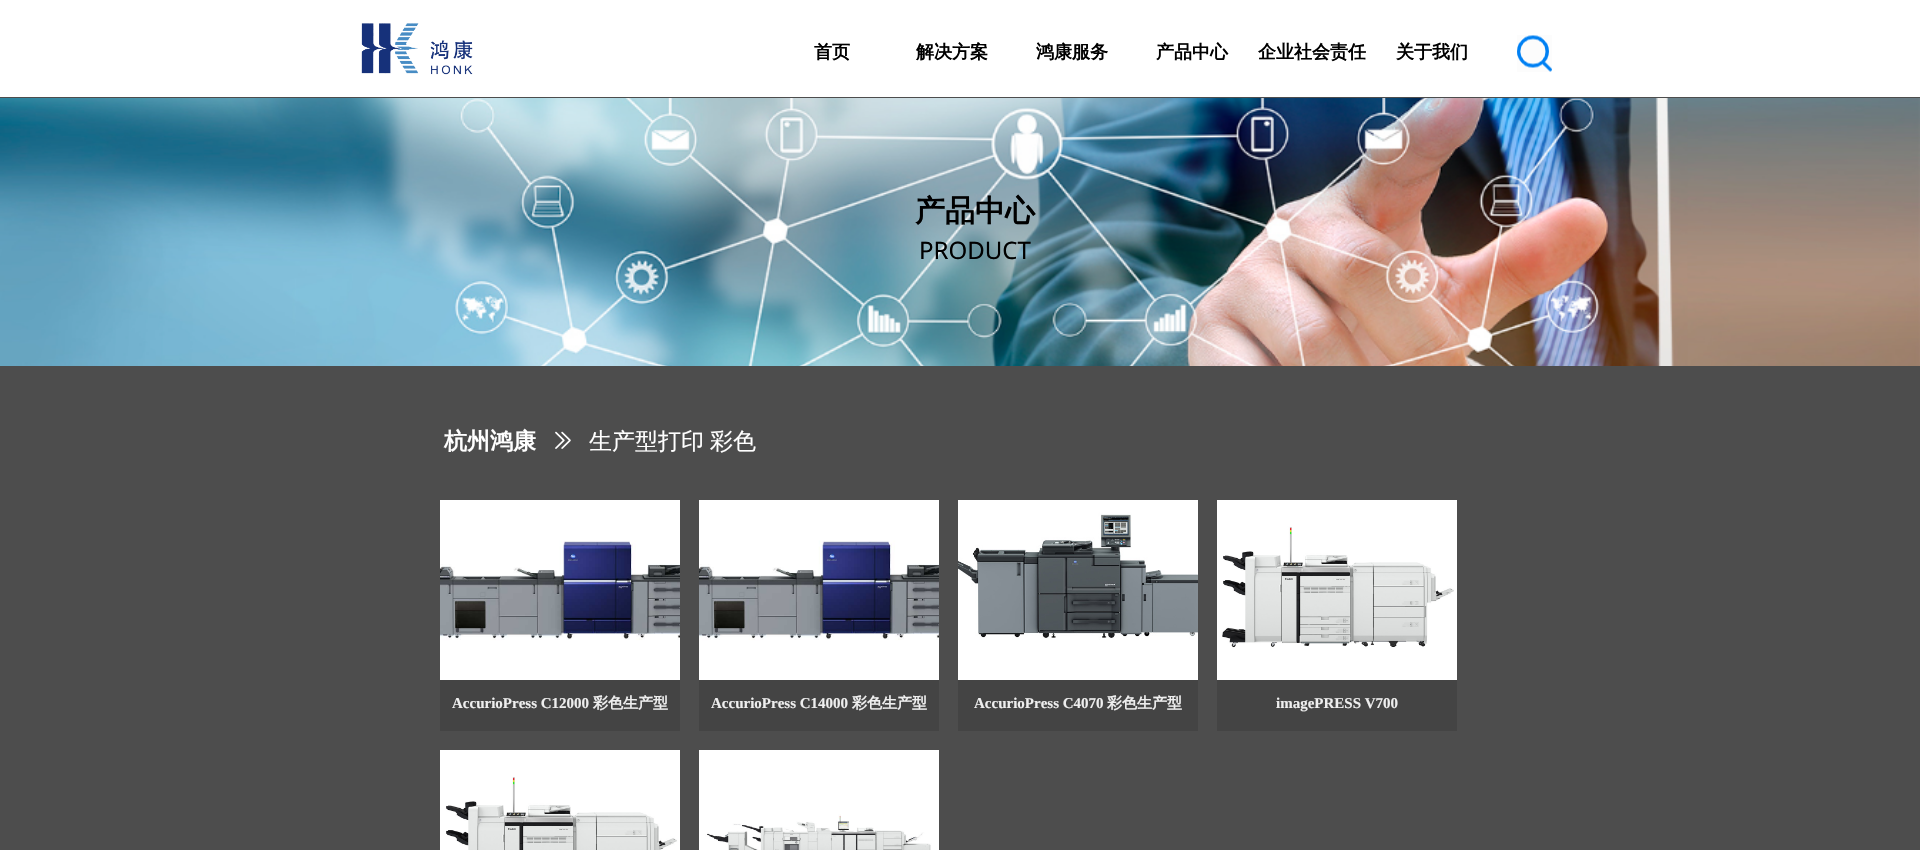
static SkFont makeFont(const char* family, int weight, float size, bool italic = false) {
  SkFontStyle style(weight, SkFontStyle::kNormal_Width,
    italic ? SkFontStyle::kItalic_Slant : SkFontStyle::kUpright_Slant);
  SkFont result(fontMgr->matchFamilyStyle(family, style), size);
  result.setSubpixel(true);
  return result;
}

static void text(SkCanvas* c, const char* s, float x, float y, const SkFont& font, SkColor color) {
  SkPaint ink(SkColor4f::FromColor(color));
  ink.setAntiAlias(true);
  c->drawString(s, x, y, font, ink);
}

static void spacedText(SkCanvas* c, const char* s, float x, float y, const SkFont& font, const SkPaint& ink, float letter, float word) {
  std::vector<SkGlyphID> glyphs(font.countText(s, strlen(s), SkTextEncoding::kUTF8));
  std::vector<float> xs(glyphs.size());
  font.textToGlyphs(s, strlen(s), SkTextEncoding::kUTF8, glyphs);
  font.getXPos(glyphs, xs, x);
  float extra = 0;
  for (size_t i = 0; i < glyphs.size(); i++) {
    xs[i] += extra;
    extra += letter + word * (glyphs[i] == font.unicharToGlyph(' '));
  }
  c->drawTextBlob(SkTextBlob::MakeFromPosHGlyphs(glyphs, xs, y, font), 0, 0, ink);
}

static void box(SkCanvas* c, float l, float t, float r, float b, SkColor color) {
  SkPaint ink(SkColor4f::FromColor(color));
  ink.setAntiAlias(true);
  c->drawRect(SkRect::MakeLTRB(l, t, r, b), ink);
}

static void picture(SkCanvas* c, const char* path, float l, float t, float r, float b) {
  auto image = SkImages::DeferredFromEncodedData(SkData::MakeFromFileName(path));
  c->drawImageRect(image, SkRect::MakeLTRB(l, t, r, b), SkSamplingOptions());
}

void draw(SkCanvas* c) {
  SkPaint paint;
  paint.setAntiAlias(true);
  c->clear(0xffffffff);
  picture(c, "img_01.png", 361, 23, 473, 75);
  SkFont face1 = makeFont("WenQuanYi Zen Hei", 700, 18);
  text(c, "首页", 814, 58, face1, 0xff000000);
  text(c, "解决方案", 916, 58, face1, 0xff000000);
  text(c, "鸿康服务", 1036, 58, face1, 0xff000000);
  text(c, "产品中心", 1156, 58, face1, 0xff000000);
  text(c, "企业社会责任", 1258, 58, face1, 0xff000000);
  text(c, "关于我们", 1396, 58, face1, 0xff000000);
  picture(c, "img_02.png", 1517, 35, 1552, 72);
  box(c, 0, 97, 1920, 850, 0xff4d4d4d);
  picture(c, "img_03.png", 0, 98, 1920, 366);
  SkFont face2 = makeFont("WenQuanYi Zen Hei", 700, 30);
  text(c, "产品中心", 915, 221, face2, 0xff000000);
  SkFont face3 = makeFont("Noto Sans", 400, 24);
  text(c, "PRODUCT", 919, 259, face3, 0xff000000);
  SkFont face4 = makeFont("WenQuanYi Zen Hei", 700, 23);
  text(c, "杭州鸿康", 444, 449, face4, 0xffffffff);
  picture(c, "img_04.png", 555, 431, 571, 449);
  SkFont face5 = makeFont("WenQuanYi Zen Hei", 500, 23);
  paint.setColor(0xffffffff);
  spacedText(c, "生产型打印 彩色", 589, 449, face5, paint, 0, -1);
  box(c, 440, 680, 680, 731, 0xff444444);
  picture(c, "img_05.png", 440, 500, 680, 680);
  SkFont face6 = makeFont("Liberation Serif", 700, 15);
  text(c, "AccurioPress C12000", 452, 708, face6, 0xffeeeeee);
  SkFont face7 = makeFont("WenQuanYi Zen Hei", 700, 15);
  text(c, "彩色生产型", 593, 708, face7, 0xffeeeeee);
  box(c, 699, 680, 939, 731, 0xff444444);
  picture(c, "img_05.png", 699, 500, 939, 680);
  text(c, "AccurioPress C14000", 711, 708, face6, 0xffeeeeee);
  text(c, "彩色生产型", 852, 708, face7, 0xffeeeeee);
  box(c, 958, 680, 1198, 731, 0xff444444);
  picture(c, "img_06.png", 958, 500, 1198, 680);
  text(c, "AccurioPress C4070", 974, 708, face6, 0xffeeeeee);
  text(c, "彩色生产型", 1107, 708, face7, 0xffeeeeee);
  box(c, 1217, 680, 1457, 731, 0xff444444);
  picture(c, "img_07.png", 1217, 500, 1457, 680);
  text(c, "imagePRESS V700", 1276, 708, face6, 0xffeeeeee);
  picture(c, "img_08.png", 440, 750, 680, 850);
  picture(c, "img_09.png", 699, 750, 939, 850);
}
